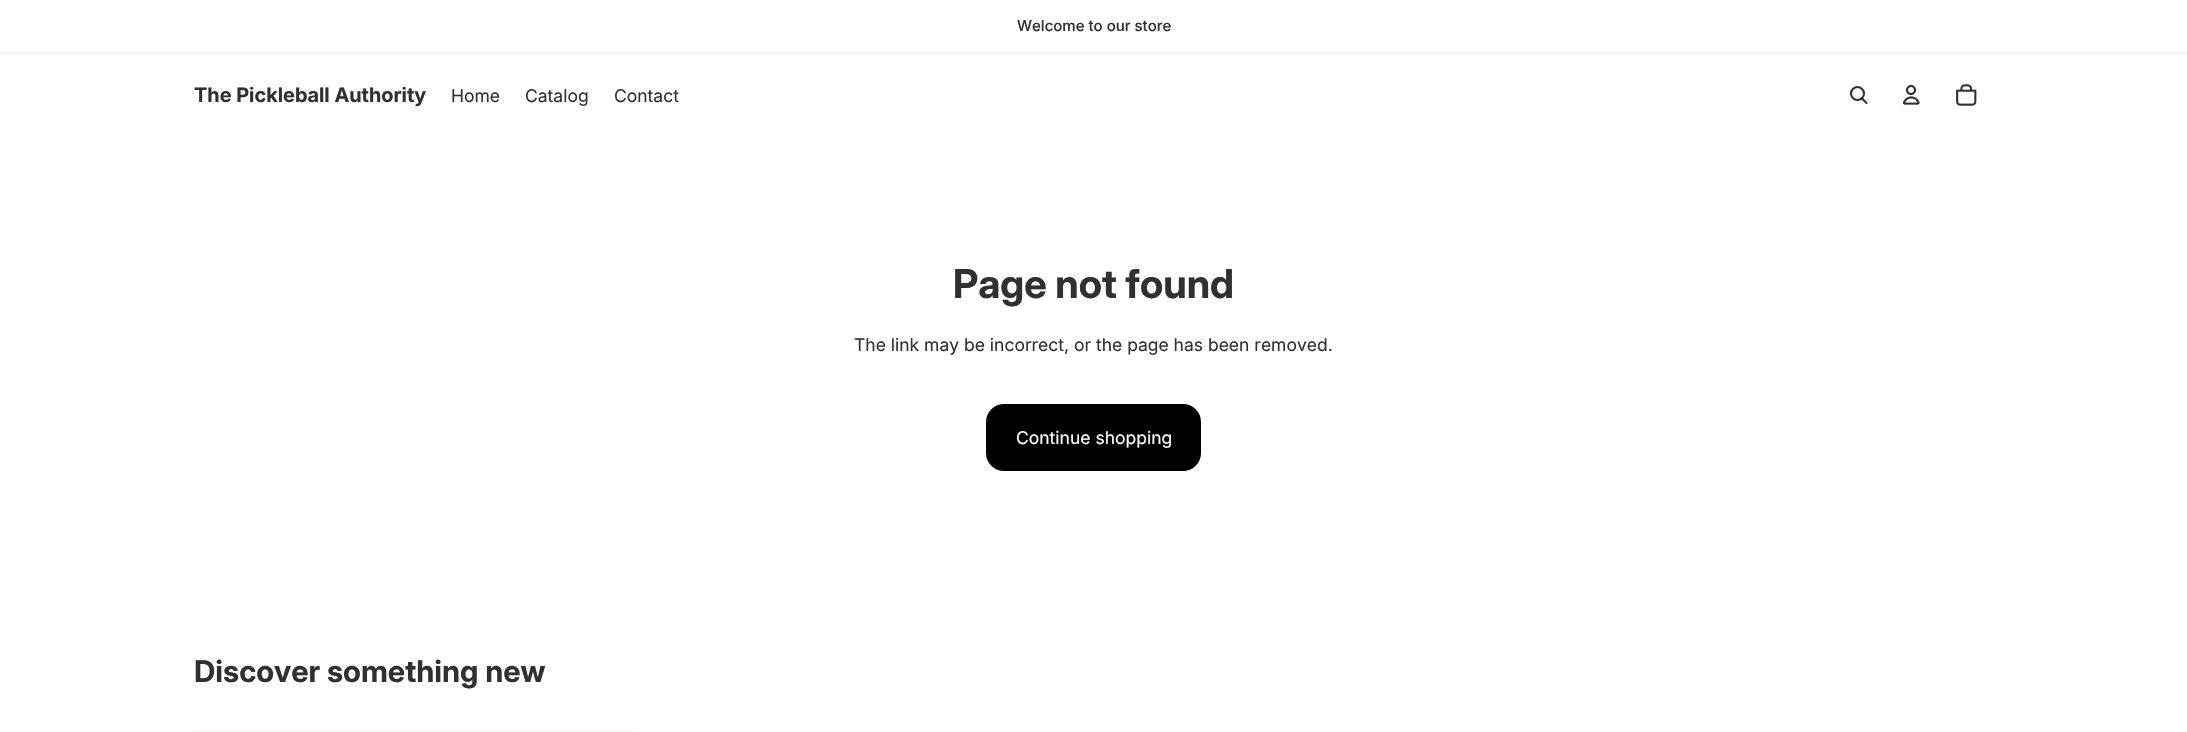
static SkFont makeFont(const char* family, int weight, float size, bool italic = false) {
  SkFontStyle style(weight, SkFontStyle::kNormal_Width,
    italic ? SkFontStyle::kItalic_Slant : SkFontStyle::kUpright_Slant);
  SkFont result(fontMgr->matchFamilyStyle(family, style), size);
  result.setSubpixel(true);
  return result;
}

static void text(SkCanvas* c, const char* s, float x, float y, const SkFont& font, SkColor color) {
  SkPaint ink(SkColor4f::FromColor(color));
  ink.setAntiAlias(true);
  c->drawString(s, x, y, font, ink);
}

static void box(SkCanvas* c, float l, float t, float r, float b, SkColor color) {
  SkPaint ink(SkColor4f::FromColor(color));
  ink.setAntiAlias(true);
  c->drawRect(SkRect::MakeLTRB(l, t, r, b), ink);
}

static void roundBox(SkCanvas* c, float l, float t, float r, float b, float radius, SkColor color) {
  SkPaint ink(SkColor4f::FromColor(color));
  ink.setAntiAlias(true);
  c->drawRoundRect(SkRect::MakeLTRB(l, t, r, b), radius, radius, ink);
}

static void picture(SkCanvas* c, const char* path, float l, float t, float r, float b) {
  auto image = SkImages::DeferredFromEncodedData(SkData::MakeFromFileName(path));
  c->drawImageRect(image, SkRect::MakeLTRB(l, t, r, b), SkSamplingOptions());
}

void draw(SkCanvas* c) {
  SkPaint paint;
  paint.setAntiAlias(true);
  c->clear(0xffffffff);
  box(c, 0, 53, 2187, 54, 0xfff0f0f0);
  SkFont face1 = makeFont("Inter", 500, 15);
  text(c, "Welcome to our store", 1017, 31, face1, 0xff303030);
  SkFont face2 = makeFont("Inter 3", 700, 20);
  text(c, "The Pickleball Authority", 194, 102, face2, 0xff303030);
  SkFont face3 = makeFont("Inter", 400, 17.5f);
  text(c, "Home", 451, 102, face3, 0xff303030);
  text(c, "Catalog", 525, 102, face3, 0xff303030);
  text(c, "Contact", 614, 102, face3, 0xff303030);
  paint.setStyle(SkPaint::kStroke_Style);
  paint.setStrokeWidth(2.1f);
  paint.setColor(0xff303030);
  c->drawCircle(1857.5f, 93.5f, 6.5f, paint);
  paint.setStrokeCap(SkPaint::kRound_Cap);
  paint.setStrokeJoin(SkPaint::kRound_Join);
  paint.setColor(0xcf000000);
  c->drawPath(SkPathBuilder().moveTo(1862, 98.5f).lineTo(1866.5f, 103).detach(), paint);
  picture(c, "img_01.png", 1902, 85, 1920, 105);
  picture(c, "img_02.png", 1956, 84, 1977, 106);
  SkFont face4 = makeFont("Inter", 700, 40);
  text(c, "Page not found", 953, 298, face4, 0xff303030);
  text(c, "The link may be incorrect, or the page has been removed.", 854, 351, face3, 0xff303030);
  roundBox(c, 986, 404, 1201, 471, 18, 0xff000000);
  text(c, "Continue shopping", 1016, 444, face3, 0xffffffff);
  SkFont face5 = makeFont("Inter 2", 700, 30);
  text(c, "Discover something new", 194, 682, face5, 0xff303030);
  box(c, 194, 731, 633, 732, 0xfff2f2f2);
}
